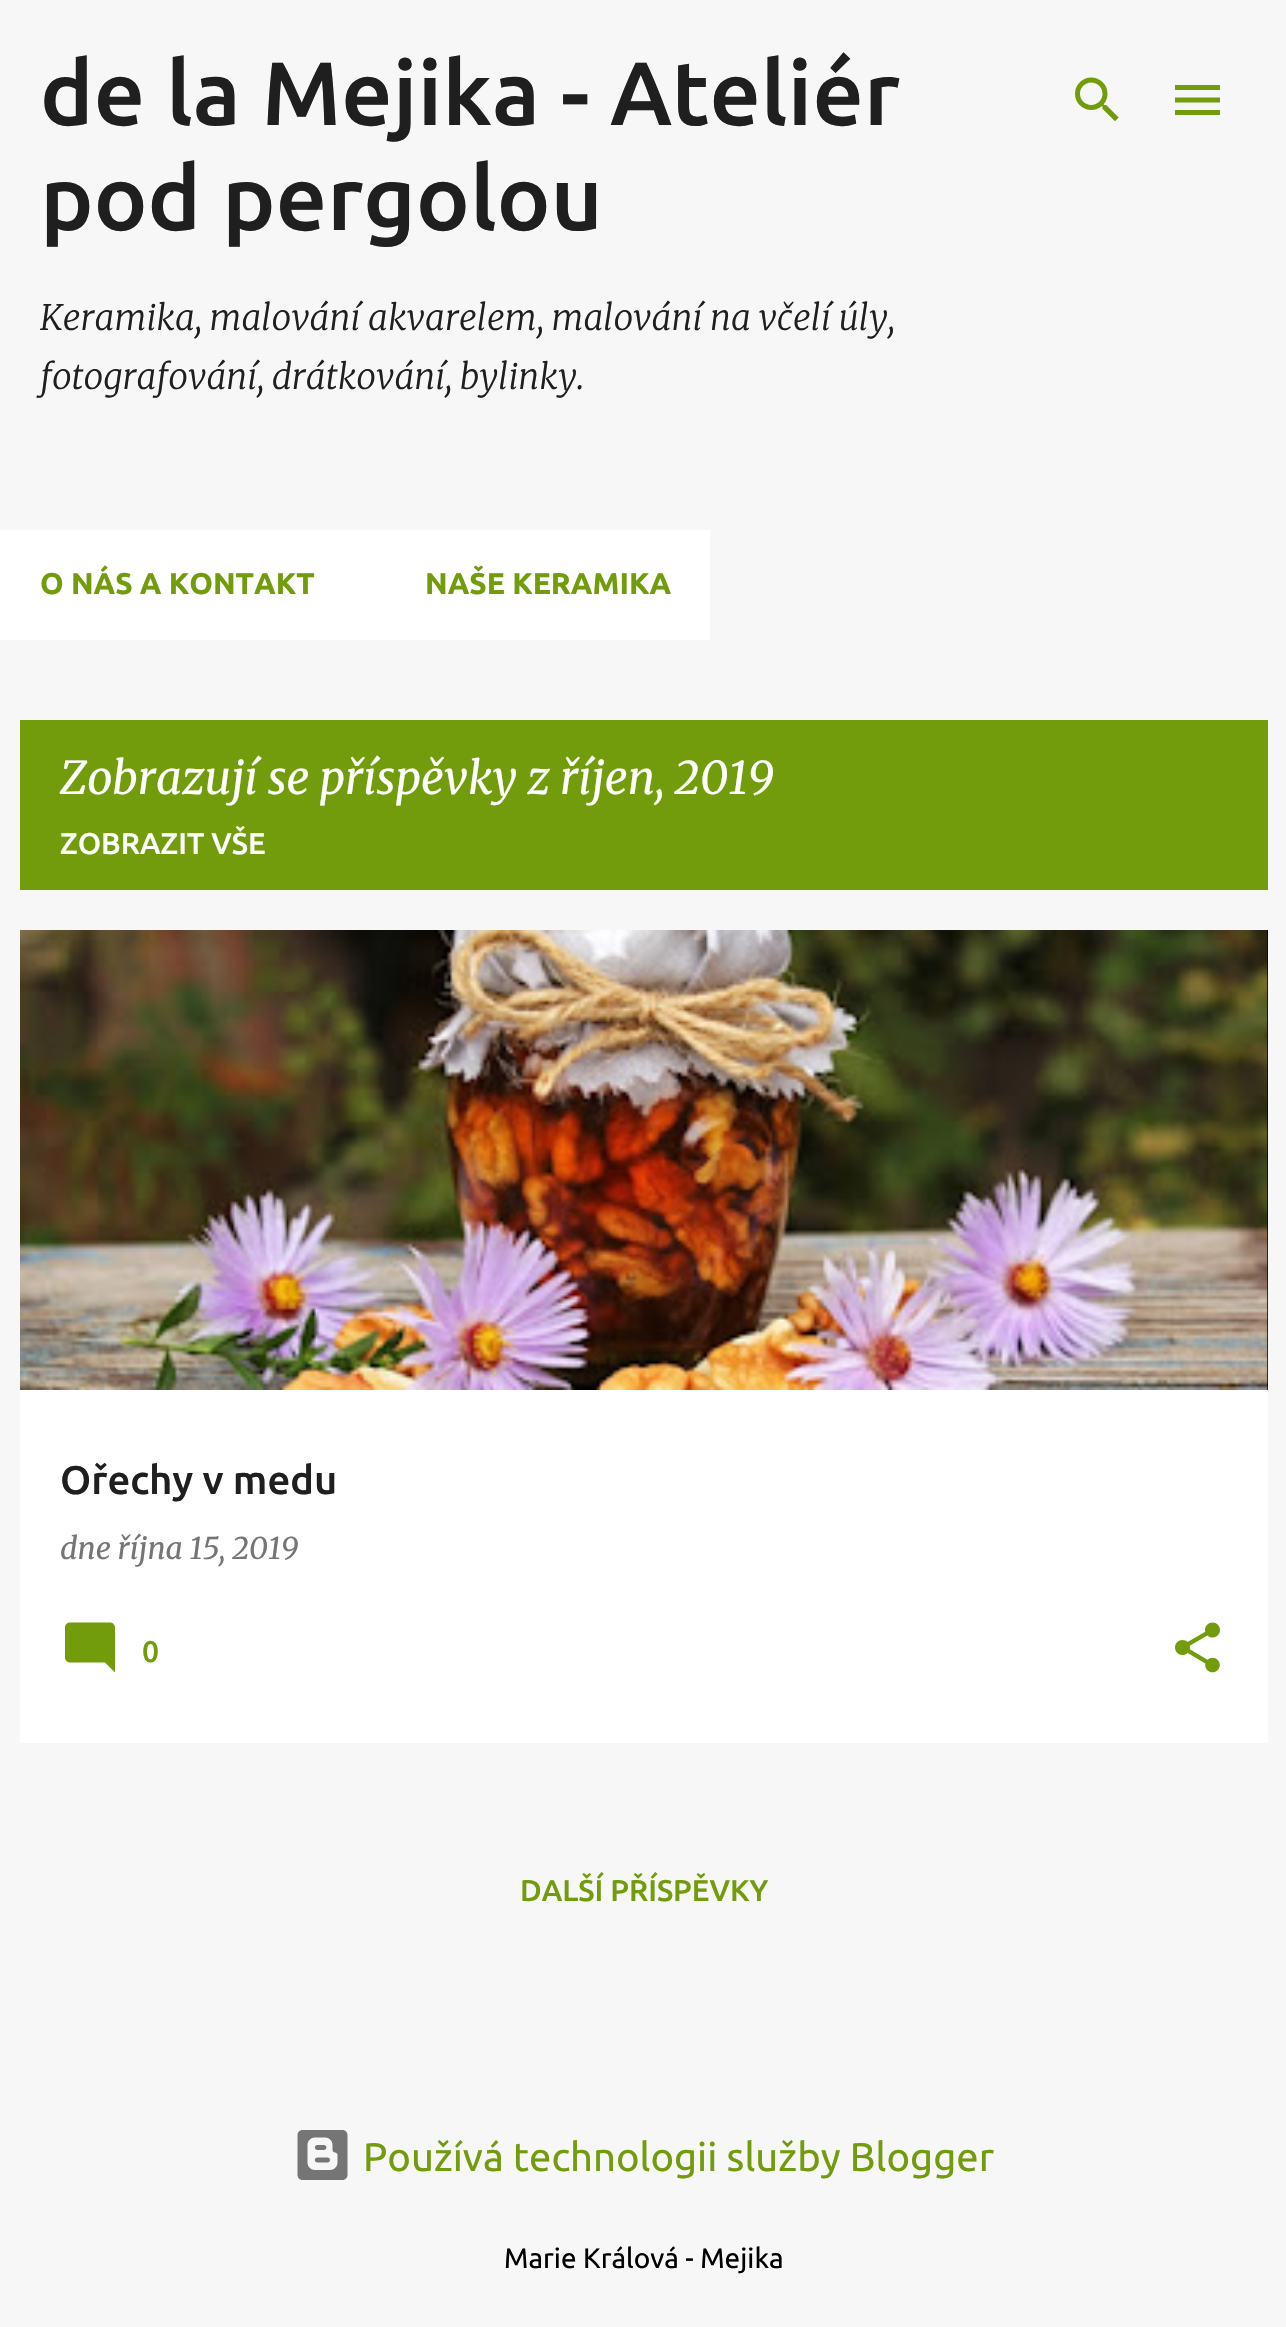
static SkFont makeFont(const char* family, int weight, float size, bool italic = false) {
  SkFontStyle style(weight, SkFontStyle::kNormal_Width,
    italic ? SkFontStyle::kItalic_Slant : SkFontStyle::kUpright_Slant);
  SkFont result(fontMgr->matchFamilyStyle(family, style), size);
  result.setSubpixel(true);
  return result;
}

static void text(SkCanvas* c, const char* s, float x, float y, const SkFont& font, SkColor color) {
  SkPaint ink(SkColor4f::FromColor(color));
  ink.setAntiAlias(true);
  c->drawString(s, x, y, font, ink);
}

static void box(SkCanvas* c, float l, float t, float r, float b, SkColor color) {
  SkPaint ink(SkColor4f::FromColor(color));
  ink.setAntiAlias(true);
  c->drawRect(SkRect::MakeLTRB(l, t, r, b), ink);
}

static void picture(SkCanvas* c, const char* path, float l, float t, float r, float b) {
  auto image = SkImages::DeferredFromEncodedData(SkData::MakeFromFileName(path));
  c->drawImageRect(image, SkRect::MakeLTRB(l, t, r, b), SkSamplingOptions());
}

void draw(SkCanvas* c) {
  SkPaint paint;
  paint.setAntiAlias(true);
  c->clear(0xfff7f7f7);
  SkFont face1 = makeFont("Ubuntu", 500, 90);
  text(c, "de la Mejika - Ateliér", 40, 125, face1, 0xff1f1f1f);
  text(c, "pod pergolou", 40, 230, face1, 0xff1f1f1f);
  SkFont face2 = makeFont("Merriweather", 300, 35, true);
  text(c, "Keramika, malování akvarelem, malování na včelí úly,", 40, 330, face2, 0xff1f1f1f);
  text(c, "fotografování, drátkování, bylinky.", 40, 389, face2, 0xff1f1f1f);
  picture(c, "img_01.png", 1075, 77, 1119, 122);
  picture(c, "img_02.png", 1175, 85, 1220, 115);
  box(c, 0, 530, 710, 640, 0xffffffff);
  SkFont face3 = makeFont("Ubuntu", 700, 30);
  text(c, "O NÁS A KONTAKT", 40, 594, face3, 0xff729c0b);
  text(c, "NAŠE KERAMIKA", 425, 594, face3, 0xff729c0b);
  box(c, 20, 720, 1268, 890, 0xff729c0b);
  SkFont face4 = makeFont("Merriweather", 400, 45, true);
  text(c, "Zobrazují se příspěvky z říjen, 2019", 60, 794, face4, 0xffffffff);
  SkFont face5 = makeFont("Ubuntu", 500, 30);
  text(c, "ZOBRAZIT VŠE", 60, 854, face5, 0xffffffff);
  box(c, 20, 1390, 1268, 1743, 0xffffffff);
  box(c, 1267, 930, 1268, 1390, 0xff000000);
  picture(c, "img_03.png", 20, 930, 1268, 1390);
  SkFont face6 = makeFont("Ubuntu", 500, 40);
  text(c, "Ořechy v medu", 60, 1494, face6, 0xff1f1f1f);
  SkFont face7 = makeFont("Merriweather", 400, 30, true);
  text(c, "dne října 15, 2019", 60, 1559, face7, 0xff757575);
  picture(c, "img_04.png", 65, 1622, 115, 1673);
  text(c, "0", 142, 1662, face5, 0xff729c0b);
  picture(c, "img_05.png", 1175, 1622, 1220, 1673);
  text(c, "DALŠÍ PŘÍSPĚVKY", 520, 1901, face5, 0xff729c0b);
  picture(c, "img_06.png", 297, 2130, 348, 2180);
  SkFont face8 = makeFont("Ubuntu", 400, 40);
  text(c, "Používá technologii služby Blogger", 363, 2171, face8, 0xff729c0b);
  SkFont face9 = makeFont("Ubuntu", 400, 28);
  text(c, "Marie Králová - Mejika", 504, 2268, face9, 0xff000000);
}
